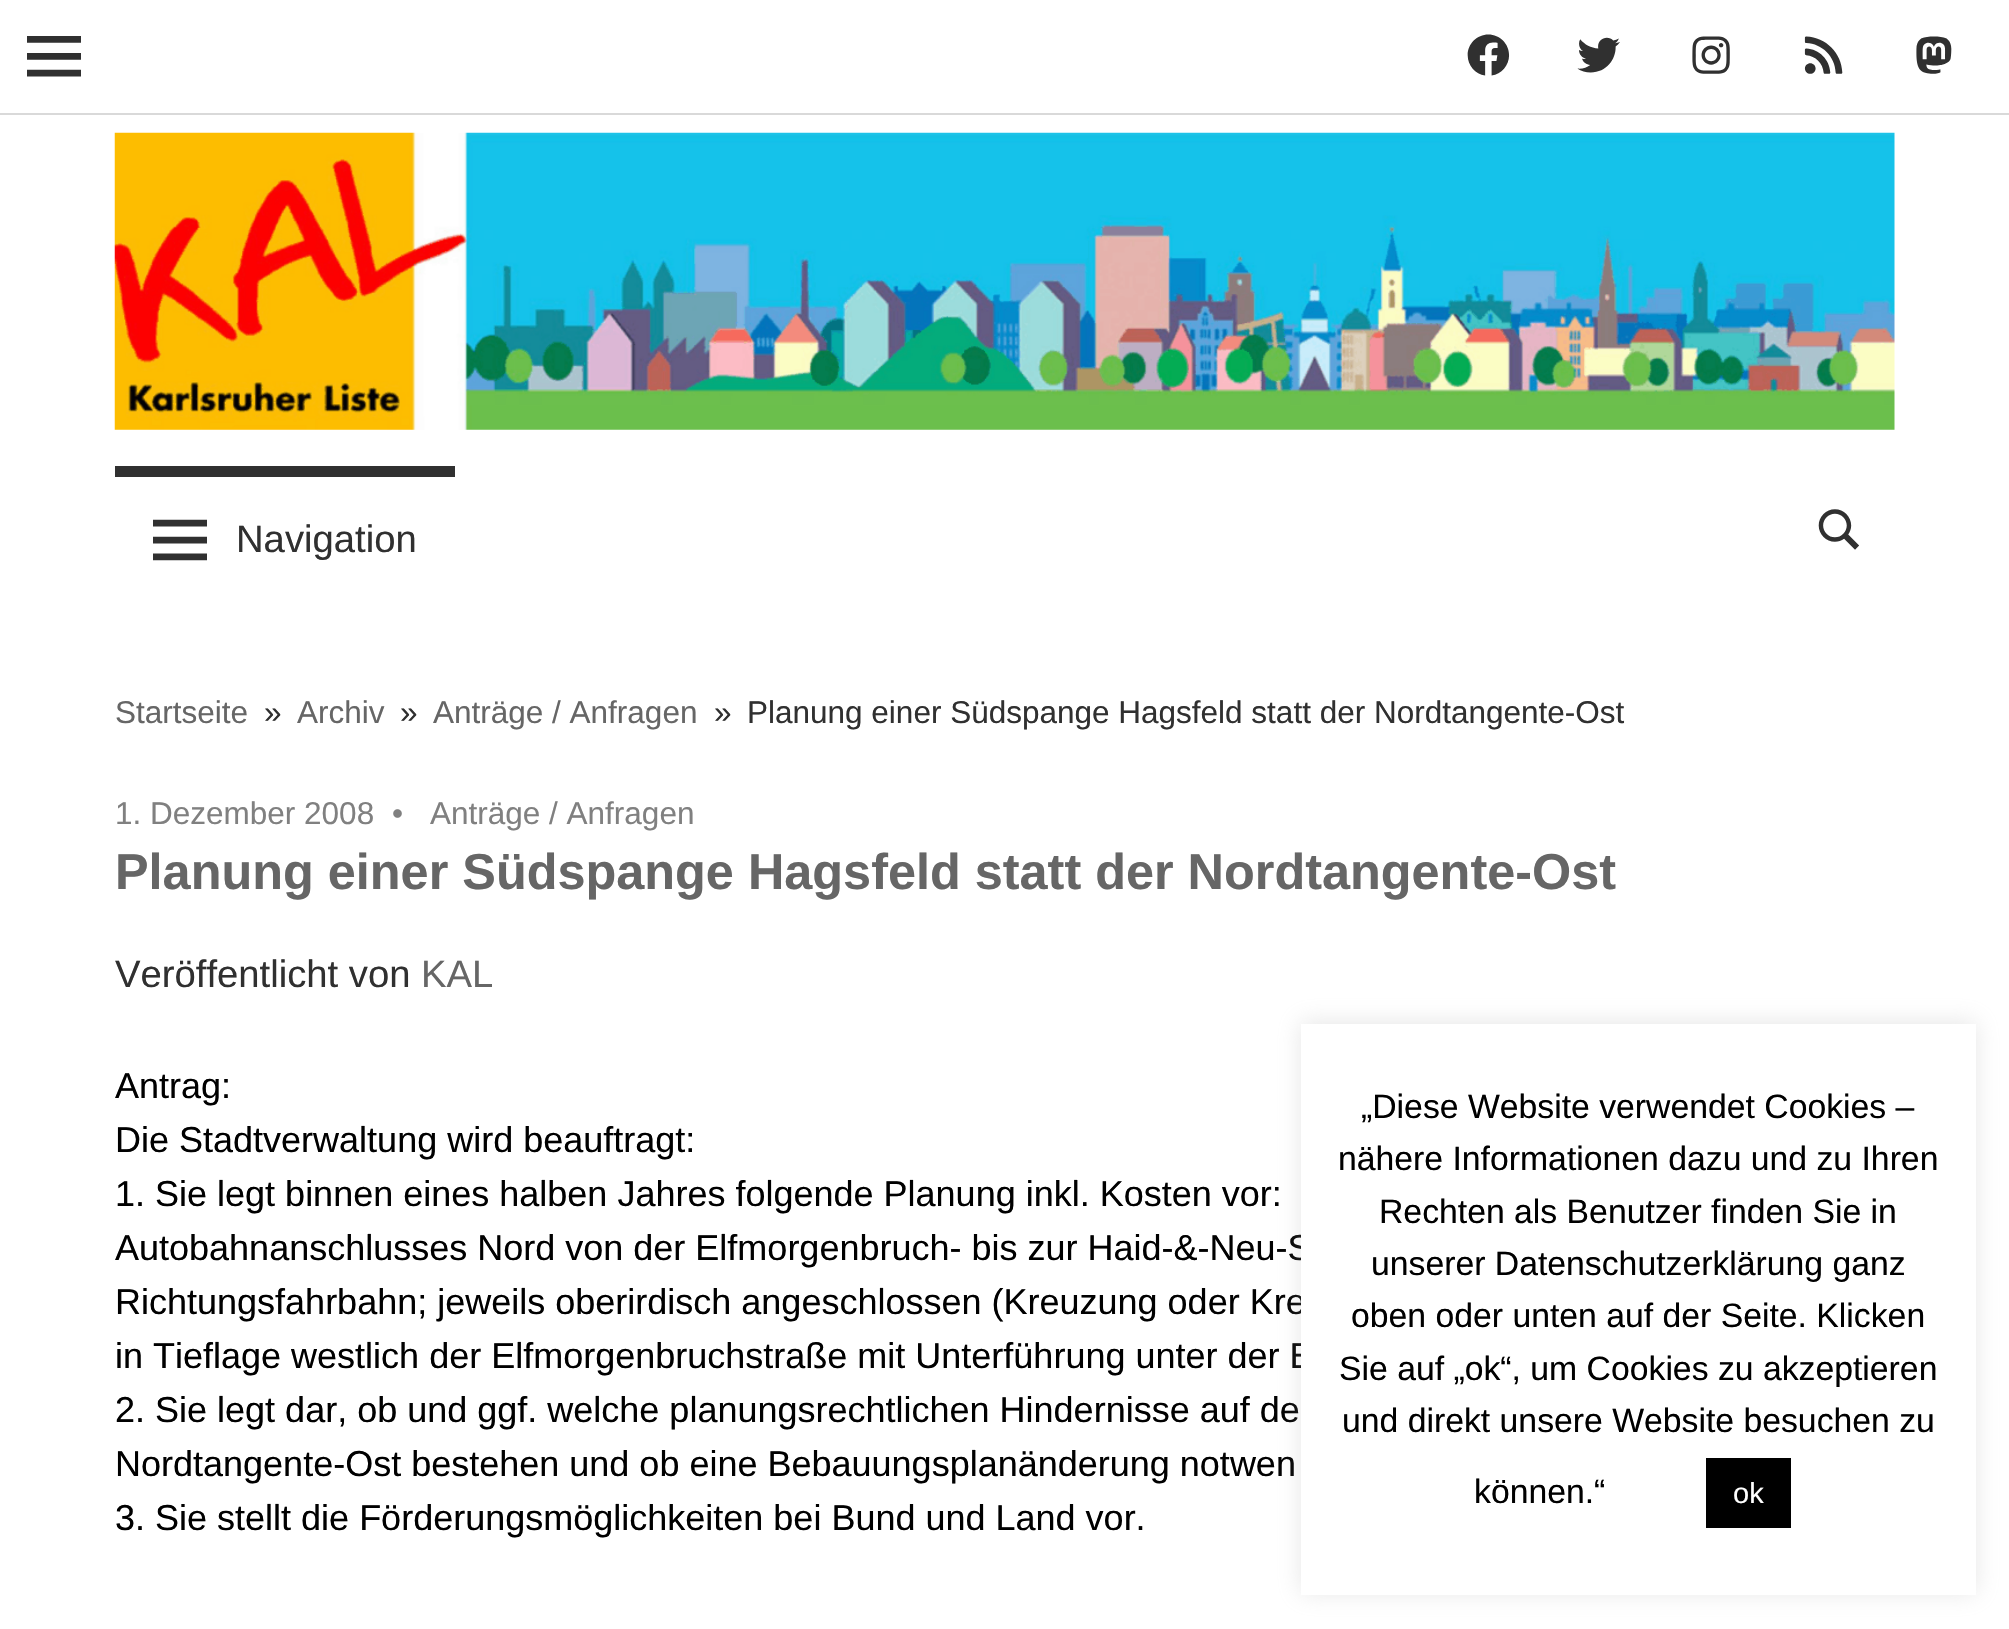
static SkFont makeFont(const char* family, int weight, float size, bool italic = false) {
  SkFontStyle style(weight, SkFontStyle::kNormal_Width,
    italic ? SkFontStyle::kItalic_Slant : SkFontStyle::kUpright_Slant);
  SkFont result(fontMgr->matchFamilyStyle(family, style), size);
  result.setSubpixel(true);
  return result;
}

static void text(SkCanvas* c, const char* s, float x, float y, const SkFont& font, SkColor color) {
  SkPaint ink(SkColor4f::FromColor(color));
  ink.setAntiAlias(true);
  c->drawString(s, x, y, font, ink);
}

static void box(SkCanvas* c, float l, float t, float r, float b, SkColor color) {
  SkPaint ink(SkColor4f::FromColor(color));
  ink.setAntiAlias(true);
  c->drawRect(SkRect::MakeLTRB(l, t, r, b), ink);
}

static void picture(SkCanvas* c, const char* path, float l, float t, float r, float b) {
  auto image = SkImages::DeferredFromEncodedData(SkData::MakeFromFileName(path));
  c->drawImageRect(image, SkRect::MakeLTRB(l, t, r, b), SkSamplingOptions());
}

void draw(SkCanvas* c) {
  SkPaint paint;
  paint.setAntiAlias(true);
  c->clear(0xffffffff);
  box(c, 0, 113, 2009, 115, 0xffd9d9d9);
  picture(c, "img_01.png", 27, 36, 81, 77);
  picture(c, "img_02.png", 1467, 34, 1510, 76);
  picture(c, "img_03.png", 1577, 37, 1620, 73);
  picture(c, "img_04.png", 1692, 36, 1730, 74);
  picture(c, "img_05.png", 1804, 36, 1843, 74);
  picture(c, "img_06.png", 1916, 36, 1952, 74);
  picture(c, "img_07.png", 114, 132, 1895, 430);
  box(c, 115, 466, 455, 477, 0xff303030);
  picture(c, "img_08.png", 153, 519, 207, 561);
  SkFont face1 = makeFont("Liberation Sans", 400, 38.25f);
  text(c, "Navigation", 236, 552, face1, 0xff303030);
  picture(c, "img_09.png", 1818, 509, 1859, 550);
  SkFont face2 = makeFont("Liberation Sans", 400, 31.5f);
  text(c, "Startseite", 115, 723, face2, 0xff666666);
  text(c, "»", 264, 723, face2, 0xff303030);
  text(c, "Archiv", 297, 723, face2, 0xff666666);
  text(c, "»", 400, 723, face2, 0xff303030);
  text(c, "Anträge / Anfragen", 433, 723, face2, 0xff666666);
  text(c, "»", 714, 723, face2, 0xff303030);
  text(c, "Planung einer Südspange Hagsfeld statt der Nordtangente-Ost", 747, 723, face2, 0xff303030);
  text(c, "1. Dezember 2008", 115, 824, face2, 0xff808080);
  text(c, "•", 392, 824, face2, 0xff808080);
  text(c, "Anträge / Anfragen", 430, 824, face2, 0xff808080);
  SkFont face3 = makeFont("Liberation Sans", 700, 50.4f);
  text(c, "Planung einer Südspange Hagsfeld statt der Nordtangente-Ost", 115, 889, face3, 0xff666666);
  text(c, "Veröffentlicht von", 115, 987, face1, 0xff303030);
  text(c, "KAL", 421, 987, face1, 0xff666666);
  SkFont face4 = makeFont("Liberation Sans", 400, 36);
  text(c, "Antrag:", 115, 1098, face4, 0xff000000);
  text(c, "Die Stadtverwaltung wird beauftragt:", 115, 1152, face4, 0xff000000);
  text(c, "1. Sie legt binnen eines halben Jahres folgende Planung inkl. Kosten vor:", 115, 1206, face4, 0xff000000);
  text(c, "Autobahnanschlusses Nord von der Elfmorgenbruch- bis zur Haid-&-Neu-S", 115, 1260, face4, 0xff000000);
  text(c, "Richtungsfahrbahn; jeweils oberirdisch angeschlossen (Kreuzung oder Kre", 115, 1314, face4, 0xff000000);
  text(c, "in Tieflage westlich der Elfmorgenbruchstraße mit Unterführung unter der B", 115, 1368, face4, 0xff000000);
  text(c, "2. Sie legt dar, ob und ggf. welche planungsrechtlichen Hindernisse auf de", 115, 1422, face4, 0xff000000);
  text(c, "Nordtangente-Ost bestehen und ob eine Bebauungsplanänderung notwen", 115, 1476, face4, 0xff000000);
  text(c, "3. Sie stellt die Förderungsmöglichkeiten bei Bund und Land vor.", 115, 1530, face4, 0xff000000);
  paint.setColor(0x4dacabab);
  paint.setMaskFilter(SkMaskFilter::MakeBlur(kNormal_SkBlurStyle, 11));
  c->drawRect(SkRect::MakeLTRB(1301, 1022, 1976, 1593), paint);
  paint.setMaskFilter(nullptr);
  box(c, 1301, 1024, 1976, 1595, 0xffffffff);
  SkFont face5 = makeFont("Liberation Sans", 400, 33.75f);
  text(c, "„Diese Website verwendet Cookies –", 1361, 1118, face5, 0xff000000);
  text(c, "nähere Informationen dazu und zu Ihren", 1338, 1170, face5, 0xff000000);
  text(c, "Rechten als Benutzer finden Sie in", 1379, 1223, face5, 0xff000000);
  text(c, "unserer Datenschutzerklärung ganz", 1371, 1275, face5, 0xff000000);
  text(c, "oben oder unten auf der Seite. Klicken", 1351, 1327, face5, 0xff000000);
  text(c, "Sie auf „ok“, um Cookies zu akzeptieren", 1339, 1380, face5, 0xff000000);
  text(c, "und direkt unsere Website besuchen zu", 1342, 1432, face5, 0xff000000);
  text(c, "können.“", 1474, 1503, face5, 0xff000000);
  box(c, 1706, 1458, 1791, 1528, 0xff000000);
  SkFont face6 = makeFont("Liberation Sans", 400, 29);
  text(c, "ok", 1733, 1503, face6, 0xffffffff);
}
